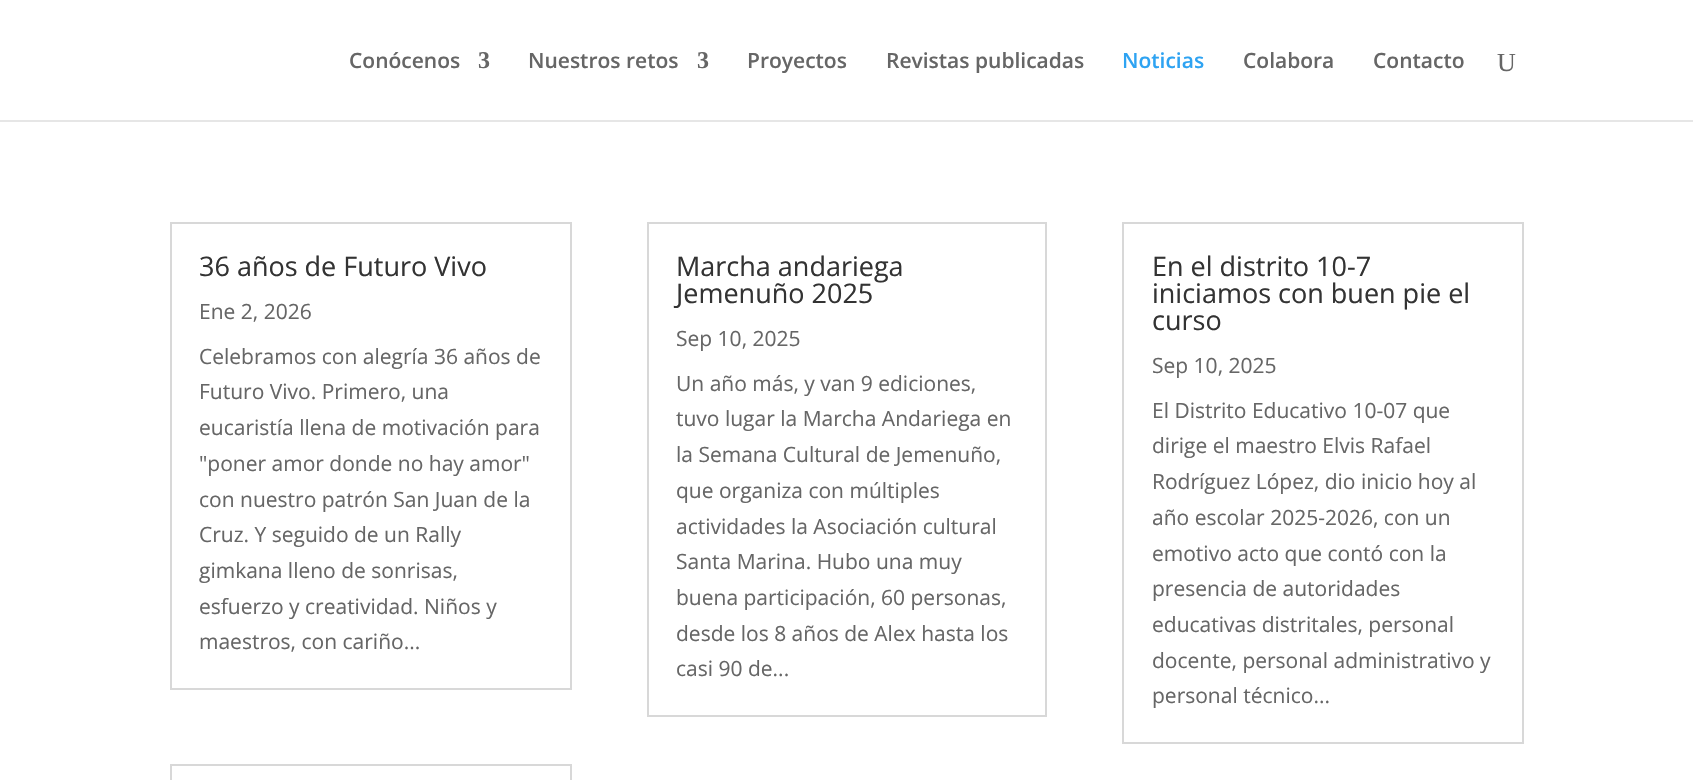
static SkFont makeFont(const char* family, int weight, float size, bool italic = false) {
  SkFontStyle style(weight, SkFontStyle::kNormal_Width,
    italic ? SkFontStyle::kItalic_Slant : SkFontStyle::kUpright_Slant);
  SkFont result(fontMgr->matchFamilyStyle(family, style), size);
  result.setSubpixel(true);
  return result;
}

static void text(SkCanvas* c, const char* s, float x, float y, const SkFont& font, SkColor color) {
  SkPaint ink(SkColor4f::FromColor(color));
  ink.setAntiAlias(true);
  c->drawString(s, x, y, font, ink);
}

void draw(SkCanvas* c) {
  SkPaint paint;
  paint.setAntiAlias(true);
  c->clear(0xffffffff);
  paint.setColor(0xffe6e6e6);
  c->drawPath(SkPathBuilder().moveTo(0, 120).lineTo(0, 122).lineTo(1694, 122).lineTo(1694, 2).lineTo(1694, 120).close().detach(), paint);
  SkFont face1 = makeFont("Open Sans", 600, 21);
  text(c, "Conócenos", 349, 68, face1, 0xff666666);
  SkFont face2 = makeFont("Liberation Serif", 700, 24);
  text(c, "3", 478, 68, face2, 0xff666666);
  text(c, "Nuestros retos", 528, 68, face1, 0xff666666);
  text(c, "3", 697, 68, face2, 0xff666666);
  text(c, "Proyectos", 747, 68, face1, 0xff666666);
  text(c, "Revistas publicadas", 886, 68, face1, 0xff666666);
  text(c, "Noticias", 1122, 68, face1, 0xff2ea3f2);
  text(c, "Colabora", 1243, 68, face1, 0xff666666);
  text(c, "Contacto", 1373, 68, face1, 0xff666666);
  SkFont face3 = makeFont("Liberation Serif", 400, 26);
  text(c, "U", 1497, 71, face3, 0xff666666);
  paint.setStyle(SkPaint::kStroke_Style);
  paint.setStrokeWidth(2);
  paint.setColor(0xffd8d8d8);
  c->drawRect(SkRect::MakeLTRB(171, 223, 571, 689), paint);
  SkFont face4 = makeFont("Open Sans", 400, 27);
  text(c, "36 años de Futuro Vivo", 199, 276, face4, 0xff333333);
  SkFont face5 = makeFont("Open Sans", 400, 21);
  text(c, "Ene 2, 2026", 199, 319, face5, 0xff666666);
  text(c, "Celebramos con alegría 36 años de", 199, 364, face5, 0xff666666);
  text(c, "Futuro Vivo. Primero, una", 199, 399, face5, 0xff666666);
  text(c, "eucaristía llena de motivación para", 199, 435, face5, 0xff666666);
  text(c, "\"poner amor donde no hay amor\"", 199, 471, face5, 0xff666666);
  text(c, "con nuestro patrón San Juan de la", 199, 507, face5, 0xff666666);
  text(c, "Cruz. Y seguido de un Rally", 199, 542, face5, 0xff666666);
  text(c, "gimkana lleno de sonrisas,", 199, 578, face5, 0xff666666);
  text(c, "esfuerzo y creatividad. Niños y", 199, 614, face5, 0xff666666);
  text(c, "maestros, con cariño...", 199, 649, face5, 0xff666666);
  c->drawRect(SkRect::MakeLTRB(171, 765, 571, 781), paint);
  c->drawRect(SkRect::MakeLTRB(648, 223, 1046, 716), paint);
  text(c, "Marcha andariega", 676, 276, face4, 0xff333333);
  text(c, "Jemenuño 2025", 676, 303, face4, 0xff333333);
  text(c, "Sep 10, 2025", 676, 346, face5, 0xff666666);
  text(c, "Un año más, y van 9 ediciones,", 676, 391, face5, 0xff666666);
  text(c, "tuvo lugar la Marcha Andariega en", 676, 426, face5, 0xff666666);
  text(c, "la Semana Cultural de Jemenuño,", 676, 462, face5, 0xff666666);
  text(c, "que organiza con múltiples", 676, 498, face5, 0xff666666);
  text(c, "actividades la Asociación cultural", 676, 534, face5, 0xff666666);
  text(c, "Santa Marina. Hubo una muy", 676, 569, face5, 0xff666666);
  text(c, "buena participación, 60 personas,", 676, 605, face5, 0xff666666);
  text(c, "desde los 8 años de Alex hasta los", 676, 641, face5, 0xff666666);
  text(c, "casi 90 de...", 676, 676, face5, 0xff666666);
  c->drawRect(SkRect::MakeLTRB(1123, 223, 1523, 743), paint);
  text(c, "En el distrito 10-7", 1152, 276, face4, 0xff333333);
  text(c, "iniciamos con buen pie el", 1152, 303, face4, 0xff333333);
  text(c, "curso", 1152, 330, face4, 0xff333333);
  text(c, "Sep 10, 2025", 1152, 373, face5, 0xff666666);
  text(c, "El Distrito Educativo 10-07 que", 1152, 418, face5, 0xff666666);
  text(c, "dirige el maestro Elvis Rafael", 1152, 453, face5, 0xff666666);
  text(c, "Rodríguez López, dio inicio hoy al", 1152, 489, face5, 0xff666666);
  text(c, "año escolar 2025-2026, con un", 1152, 525, face5, 0xff666666);
  text(c, "emotivo acto que contó con la", 1152, 561, face5, 0xff666666);
  text(c, "presencia de autoridades", 1152, 596, face5, 0xff666666);
  text(c, "educativas distritales, personal", 1152, 632, face5, 0xff666666);
  text(c, "docente, personal administrativo y", 1152, 668, face5, 0xff666666);
  text(c, "personal técnico...", 1152, 703, face5, 0xff666666);
}
